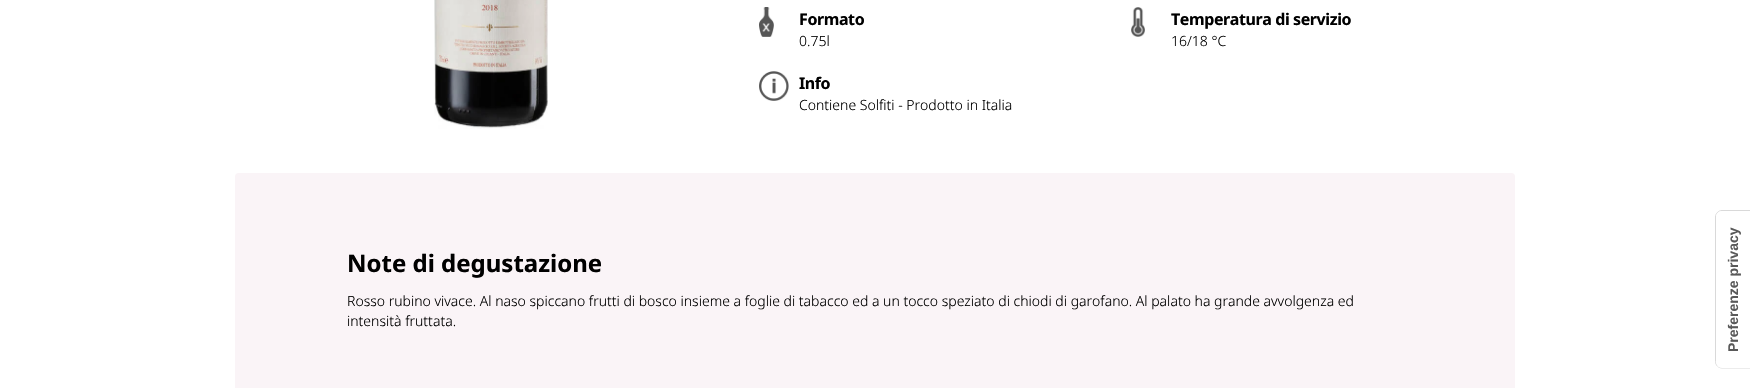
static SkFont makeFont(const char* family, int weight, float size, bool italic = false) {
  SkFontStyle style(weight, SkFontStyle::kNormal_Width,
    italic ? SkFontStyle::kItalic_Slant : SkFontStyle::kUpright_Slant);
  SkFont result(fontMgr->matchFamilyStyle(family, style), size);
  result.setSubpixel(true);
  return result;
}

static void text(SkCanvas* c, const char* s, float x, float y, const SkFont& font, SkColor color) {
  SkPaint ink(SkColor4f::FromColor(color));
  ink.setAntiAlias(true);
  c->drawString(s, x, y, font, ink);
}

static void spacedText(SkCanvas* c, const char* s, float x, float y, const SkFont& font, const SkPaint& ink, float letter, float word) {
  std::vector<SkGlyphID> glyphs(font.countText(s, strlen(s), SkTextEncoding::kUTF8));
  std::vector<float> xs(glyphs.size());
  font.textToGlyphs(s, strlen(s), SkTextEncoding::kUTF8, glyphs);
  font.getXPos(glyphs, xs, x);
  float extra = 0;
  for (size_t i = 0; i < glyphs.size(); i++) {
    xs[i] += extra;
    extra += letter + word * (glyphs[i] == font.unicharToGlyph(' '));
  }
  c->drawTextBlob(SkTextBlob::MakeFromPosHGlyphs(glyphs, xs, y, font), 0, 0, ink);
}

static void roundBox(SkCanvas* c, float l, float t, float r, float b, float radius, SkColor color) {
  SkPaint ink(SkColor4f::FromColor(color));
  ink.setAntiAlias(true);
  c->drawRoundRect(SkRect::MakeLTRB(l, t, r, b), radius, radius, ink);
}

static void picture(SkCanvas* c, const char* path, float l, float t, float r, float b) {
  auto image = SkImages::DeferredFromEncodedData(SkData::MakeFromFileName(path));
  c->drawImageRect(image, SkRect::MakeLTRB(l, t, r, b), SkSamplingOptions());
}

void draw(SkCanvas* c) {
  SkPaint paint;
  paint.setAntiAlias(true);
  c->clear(0xffffffff);
  picture(c, "img_01.png", 434, 0, 548, 129);
  picture(c, "img_02.png", 759, 7, 774, 37);
  SkFont face1 = makeFont("Noto Sans", 700, 16);
  paint.setColor(0xff000000);
  spacedText(c, "Formato", 799, 25, face1, paint, -0.4f, 0);
  SkFont face2 = makeFont("Noto Sans", 300, 14);
  text(c, "0.75l", 799, 46, face2, 0xff000000);
  picture(c, "img_03.png", 1131, 7, 1145, 37);
  spacedText(c, "Temperatura di servizio", 1171, 25, face1, paint, -0.4f, 0);
  text(c, "16/18 °C", 1171, 46, face2, 0xff000000);
  picture(c, "img_04.png", 759, 71, 789, 101);
  spacedText(c, "Info", 799, 89, face1, paint, -0.4f, 0);
  text(c, "Contiene Solfiti - Prodotto in Italia", 799, 110, face2, 0xff000000);
  roundBox(c, 235, 173, 1515, 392, 4, 0xfffaf4f7);
  SkFont face3 = makeFont("Noto Sans", 700, 24);
  text(c, "Note di degustazione", 347, 272, face3, 0xff000000);
  text(c, "Rosso rubino vivace. Al naso spiccano frutti di bosco insieme a foglie di tabacco ed a un tocco speziato di chiodi di garofano. Al palato ha grande avvolgenza ed", 347, 306, face2, 0xff000000);
  text(c, "intensità fruttata.", 347, 326, face2, 0xff000000);
  paint.setStyle(SkPaint::kStroke_Style);
  paint.setStrokeWidth(1);
  paint.setColor(0xffd9d9d9);
  c->drawPath(SkPathBuilder().moveTo(1715.5f, 361.5f).lineTo(1715.5f, 217).cubicTo(1715.5f, 213.5f, 1718.5f, 210.5f, 1722, 210.5f).lineTo(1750.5f, 210.5f).lineTo(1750.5f, 368).lineTo(1722, 368).cubicTo(1718.5f, 368, 1715.5f, 365, 1715.5f, 361.5f).close().detach(), paint);
  paint.setStyle(SkPaint::kFill_Style);
  paint.setColor(0xffffffff);
  c->drawPath(SkPathBuilder().moveTo(1716, 362).lineTo(1716, 217).cubicTo(1716, 214, 1719, 211, 1722, 211).lineTo(1750, 211).lineTo(1750, 368).lineTo(1722, 368).cubicTo(1719, 368, 1716, 365, 1716, 362).close().detach(), paint);
  SkFont face4 = makeFont("Liberation Sans", 700, 14);
  c->save();
  c->rotate(-90, 1738, 352);
  text(c, "Preferenze privacy", 1738, 352, face4, 0xff595959);
  c->restore();
}
